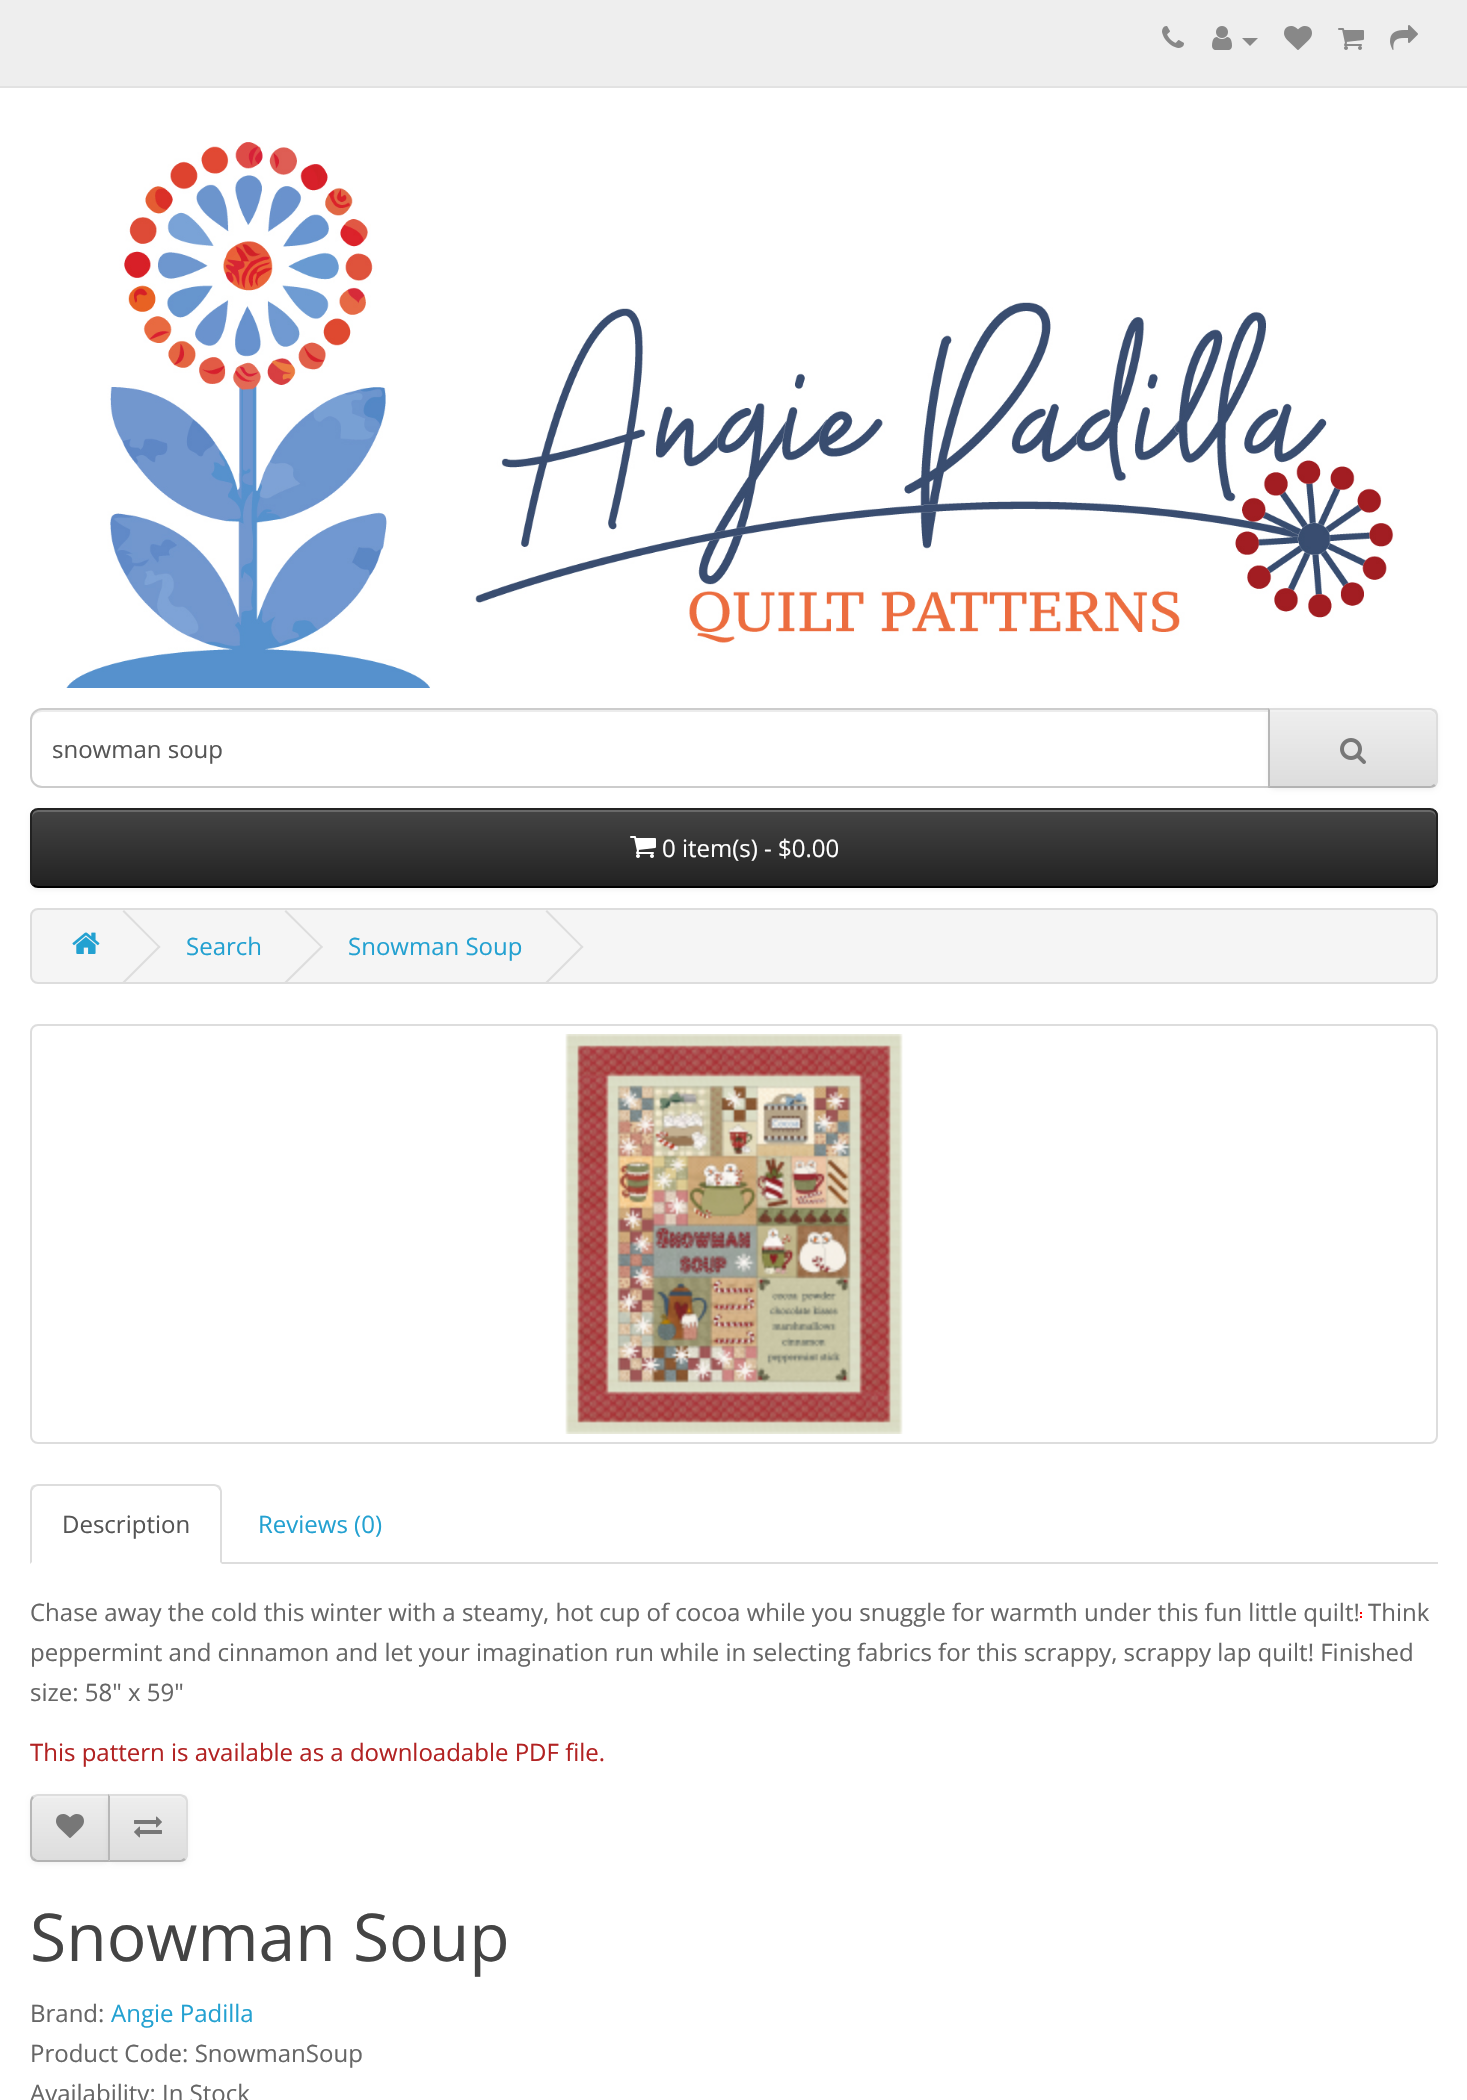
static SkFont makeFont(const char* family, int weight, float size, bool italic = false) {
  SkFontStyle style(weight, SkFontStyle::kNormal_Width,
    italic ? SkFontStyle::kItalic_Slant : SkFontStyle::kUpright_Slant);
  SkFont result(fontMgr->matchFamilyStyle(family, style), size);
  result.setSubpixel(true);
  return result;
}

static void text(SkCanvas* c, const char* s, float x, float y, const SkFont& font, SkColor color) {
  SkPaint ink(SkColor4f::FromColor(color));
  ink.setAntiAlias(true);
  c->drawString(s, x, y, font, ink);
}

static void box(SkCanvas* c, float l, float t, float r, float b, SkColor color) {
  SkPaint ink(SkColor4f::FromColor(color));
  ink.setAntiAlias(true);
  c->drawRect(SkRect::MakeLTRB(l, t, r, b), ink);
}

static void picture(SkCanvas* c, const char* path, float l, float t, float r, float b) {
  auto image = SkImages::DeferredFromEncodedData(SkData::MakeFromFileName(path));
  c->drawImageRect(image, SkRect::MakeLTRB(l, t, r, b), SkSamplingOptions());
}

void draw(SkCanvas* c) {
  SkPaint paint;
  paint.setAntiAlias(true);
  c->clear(0xffffffff);
  box(c, 0, 0, 1467, 86, 0xffeeeeee);
  box(c, 0, 86, 1467, 88, 0xffe2e2e2);
  picture(c, "img_01.png", 1162, 26, 1184, 48);
  picture(c, "img_02.png", 1212, 26, 1232, 50);
  paint.setColor(0xff888888);
  c->drawPath(SkPathBuilder().moveTo(1242, 38).lineTo(1258, 38).lineTo(1250, 46).close().detach(), paint);
  picture(c, "img_03.png", 1284, 26, 1312, 50);
  picture(c, "img_04.png", 1338, 28, 1364, 50);
  picture(c, "img_05.png", 1390, 25, 1418, 50);
  picture(c, "img_06.png", 66, 142, 1394, 688);
  paint.setColor(0xffececec);
  c->drawPath(SkPathBuilder().moveTo(42, 712).lineTo(1268, 712).lineTo(1268, 710).lineTo(42, 710).cubicTo(35, 710, 32, 716, 32, 722).cubicTo(32, 716, 36, 712, 42, 712).close().detach(), paint);
  paint.setStyle(SkPaint::kStroke_Style);
  paint.setStrokeWidth(2);
  paint.setColor(0xffcccccc);
  c->drawPath(SkPathBuilder().moveTo(42, 709).lineTo(1269, 709).lineTo(1269, 787).lineTo(42, 787).cubicTo(36, 787, 31, 782, 31, 776).lineTo(31, 720).cubicTo(31, 714, 36, 709, 42, 709).close().detach(), paint);
  SkFont face1 = makeFont("Open Sans", 400, 24);
  text(c, "snowman soup", 52, 758, face1, 0xff555555);
  paint.setStyle(SkPaint::kFill_Style);
  paint.setColor(0x0d000000);
  paint.setMaskFilter(SkMaskFilter::MakeBlur(kNormal_SkBlurStyle, 2));
  c->drawRoundRect(SkRect::MakeLTRB(1268, 710, 1438, 790), 8, 8, paint);
  paint.setMaskFilter(nullptr);
  c->save();
  c->clipPath(SkPathBuilder().moveTo(1268, 708).lineTo(1430, 708).cubicTo(1434.5f, 708, 1438, 711.5f, 1438, 716).lineTo(1438, 780).cubicTo(1438, 784.5f, 1434.5f, 788, 1430, 788).lineTo(1268, 788).close().detach(), true);
  {
    const SkColor colors[] = {0xffeeeeee, 0xffdddddd};
    const float stops[] = {0, 1};
    const SkPoint ends[] = {{1353, 710}, {1353, 786}};
    paint.setShader(SkGradientShader::MakeLinear(ends, colors, stops, 2, SkTileMode::kClamp));
    paint.setAlpha(255);
  }
  c->drawRect(SkRect::MakeLTRB(1270, 710, 1438, 786), paint);
  c->restore();
  paint.setShader(nullptr);
  paint.setColor(0xfff1f1f1);
  c->drawPath(SkPathBuilder().moveTo(1270, 712).lineTo(1430, 712).cubicTo(1433, 712, 1436, 715, 1436, 718).lineTo(1436, 716).cubicTo(1436, 713, 1433, 710, 1430, 710).lineTo(1270, 710).close().detach(), paint);
  paint.setColor(0xffdddddd);
  c->drawPath(SkPathBuilder().moveTo(1268, 708).lineTo(1270, 710).lineTo(1431, 710).lineTo(1434, 712).lineTo(1436, 710).cubicTo(1434, 709, 1432, 708, 1430, 708).close().detach(), paint);
  c->drawPath(SkPathBuilder().moveTo(1438, 780).lineTo(1438, 716).cubicTo(1438, 714, 1437, 712, 1436, 710).lineTo(1434, 712).cubicTo(1435, 713, 1436, 714, 1436, 716).lineTo(1436, 780).cubicTo(1436, 782, 1435, 783, 1434, 784).lineTo(1436, 786).cubicTo(1437, 784, 1438, 782, 1438, 780).close().detach(), paint);
  paint.setColor(0xffb3b3b3);
  c->drawPath(SkPathBuilder().moveTo(1430, 788).cubicTo(1432, 788, 1434, 787, 1436, 786).lineTo(1434, 784).lineTo(1431, 786).lineTo(1270, 786).lineTo(1268, 788).close().detach(), paint);
  paint.setColor(0xffb7b7b7);
  c->drawPath(SkPathBuilder().moveTo(1268, 708).lineTo(1268, 788).lineTo(1270, 786).lineTo(1270, 710).close().detach(), paint);
  picture(c, "img_07.png", 1340, 738, 1366, 764);
  paint.setColor(0x0d000000);
  paint.setMaskFilter(SkMaskFilter::MakeBlur(kNormal_SkBlurStyle, 2));
  c->drawRoundRect(SkRect::MakeLTRB(30, 810, 1438, 890), 8, 8, paint);
  paint.setMaskFilter(nullptr);
  c->save();
  c->clipPath(SkPathBuilder().moveTo(38, 808).lineTo(1430, 808).cubicTo(1434.5f, 808, 1438, 811.5f, 1438, 816).lineTo(1438, 880).cubicTo(1438, 884.5f, 1434.5f, 888, 1430, 888).lineTo(38, 888).cubicTo(33.5f, 888, 30, 884.5f, 30, 880).lineTo(30, 816).cubicTo(30, 811.5f, 33.5f, 808, 38, 808).close().detach(), true);
  {
    const SkColor colors[] = {0xff444444, 0xff222222};
    const float stops[] = {0, 1};
    const SkPoint ends[] = {{734, 810}, {734, 886}};
    paint.setShader(SkGradientShader::MakeLinear(ends, colors, stops, 2, SkTileMode::kClamp));
    paint.setAlpha(255);
  }
  c->drawRect(SkRect::MakeLTRB(30, 810, 1438, 886), paint);
  c->restore();
  paint.setShader(nullptr);
  paint.setColor(0xff696969);
  c->drawPath(SkPathBuilder().moveTo(38, 812).lineTo(1430, 812).cubicTo(1433, 812, 1436, 815, 1436, 818).cubicTo(1436, 814, 1435, 810, 1430, 810).lineTo(38, 810).cubicTo(33, 810, 32, 814, 32, 818).cubicTo(32, 815, 35, 812, 38, 812).close().detach(), paint);
  paint.setStyle(SkPaint::kStroke_Style);
  paint.setColor(0xff000000);
  c->drawPath(SkPathBuilder().moveTo(1435, 885).cubicTo(1433.5f, 886.5f, 1432, 887, 1430, 887).lineTo(38, 887).cubicTo(36, 887, 34.5f, 886.5f, 33, 885).detach(), paint);
  paint.setColor(0xff222222);
  c->drawPath(SkPathBuilder().moveTo(33, 885).cubicTo(31.5f, 883.5f, 31, 882, 31, 880).lineTo(31, 816).cubicTo(31, 814, 31.5f, 812.5f, 33, 811).cubicTo(34.5f, 809.5f, 36, 809, 38, 809).lineTo(1430, 809).cubicTo(1432, 809, 1433.5f, 809.5f, 1435, 811).cubicTo(1436.5f, 812.5f, 1437, 814, 1437, 816).lineTo(1437, 880).cubicTo(1437, 882, 1436.5f, 883.5f, 1435, 885).detach(), paint);
  picture(c, "img_08.png", 630, 836, 656, 858);
  text(c, "0 item(s) - $0.00", 662, 857, face1, 0xffffffff);
  paint.setStyle(SkPaint::kFill_Style);
  paint.setColor(0xfff5f5f5);
  c->drawRoundRect(SkRect::MakeLTRB(31, 909, 1437, 983), 7, 7, paint);
  paint.setStyle(SkPaint::kStroke_Style);
  paint.setColor(0xffdddddd);
  c->drawRoundRect(SkRect::MakeLTRB(31, 909, 1437, 983), 7, 7, paint);
  picture(c, "img_09.png", 72, 932, 100, 954);
  paint.setStyle(SkPaint::kFill_Style);
  c->drawPath(SkPathBuilder().moveTo(122.5f, 911.5f).lineTo(124, 910).lineTo(160.5f, 947).lineTo(159, 948).close().detach(), paint);
  c->drawPath(SkPathBuilder().moveTo(122.5f, 982).lineTo(159, 945.5f).lineTo(160.5f, 947).lineTo(124, 983.5f).close().detach(), paint);
  text(c, "Search", 186, 955, face1, 0xff23a1d1);
  c->drawPath(SkPathBuilder().moveTo(284.5f, 911.5f).lineTo(286, 910).lineTo(323, 947).lineTo(321.5f, 948).close().detach(), paint);
  c->drawPath(SkPathBuilder().moveTo(284.5f, 982).lineTo(321.5f, 945.5f).lineTo(323, 947).lineTo(286, 983.5f).close().detach(), paint);
  text(c, "Snowman Soup", 348, 955, face1, 0xff23a1d1);
  c->drawPath(SkPathBuilder().moveTo(545.5f, 911.5f).lineTo(547, 910).lineTo(583.5f, 947).lineTo(582, 948).close().detach(), paint);
  c->drawPath(SkPathBuilder().moveTo(545.5f, 982).lineTo(582, 945.5f).lineTo(583.5f, 947).lineTo(547, 983.5f).close().detach(), paint);
  paint.setStyle(SkPaint::kStroke_Style);
  c->drawRoundRect(SkRect::MakeLTRB(31, 1025, 1437, 1443), 7, 7, paint);
  picture(c, "img_10.png", 565, 1034, 903, 1434);
  box(c, 222, 1562, 1438, 1564, 0xffdddddd);
  paint.setStyle(SkPaint::kFill_Style);
  c->drawPath(SkPathBuilder().moveTo(38, 1484).cubicTo(36, 1484, 34, 1485, 32, 1486).lineTo(34, 1488).cubicTo(35, 1487, 36, 1486, 38, 1486).lineTo(214, 1486).cubicTo(216, 1486, 217, 1487, 218, 1488).lineTo(220, 1486).cubicTo(218, 1485, 216, 1484, 214, 1484).close().detach(), paint);
  c->drawPath(SkPathBuilder().moveTo(222, 1564).lineTo(222, 1492).cubicTo(222, 1490, 221, 1488, 220, 1486).lineTo(218, 1488).lineTo(220, 1491).lineTo(220, 1562).close().detach(), paint);
  c->drawPath(SkPathBuilder().moveTo(30, 1564).lineTo(32, 1562).lineTo(32, 1491).lineTo(34, 1488).lineTo(32, 1486).cubicTo(31, 1488, 30, 1490, 30, 1492).close().detach(), paint);
  text(c, "Description", 62, 1533, face1, 0xff555555);
  text(c, "Reviews (0)", 258, 1533, face1, 0xff23a1d1);
  text(c, "Chase away the cold this winter with a steamy, hot cup of cocoa while you snuggle for warmth under this fun little quilt!", 30, 1621, face1, 0xff666666);
  box(c, 1360, 1612, 1362, 1614, 0xffff0000);
  text(c, "Think", 1368, 1621, face1, 0xff666666);
  box(c, 1360, 1616, 1362, 1618, 0xffff0000);
  text(c, "peppermint and cinnamon and let your imagination run while in selecting fabrics for this scrappy, scrappy lap quilt! Finished", 30, 1661, face1, 0xff666666);
  text(c, "size: 58\" x 59\"", 30, 1701, face1, 0xff666666);
  text(c, "This pattern is available as a downloadable PDF file.", 30, 1761, face1, 0xffb22222);
  paint.setColor(0x0d000000);
  paint.setMaskFilter(SkMaskFilter::MakeBlur(kNormal_SkBlurStyle, 2));
  c->drawRoundRect(SkRect::MakeLTRB(30, 1796, 110, 1864), 8, 8, paint);
  paint.setMaskFilter(nullptr);
  c->save();
  c->clipPath(SkPathBuilder().moveTo(38, 1794).lineTo(110, 1794).lineTo(110, 1862).lineTo(38, 1862).cubicTo(33.5f, 1862, 30, 1858.5f, 30, 1854).lineTo(30, 1802).cubicTo(30, 1797.5f, 33.5f, 1794, 38, 1794).close().detach(), true);
  {
    const SkColor colors[] = {0xffeeeeee, 0xffdddddd};
    const float stops[] = {0, 1};
    const SkPoint ends[] = {{70, 1796}, {70, 1860}};
    paint.setShader(SkGradientShader::MakeLinear(ends, colors, stops, 2, SkTileMode::kClamp));
    paint.setAlpha(255);
  }
  c->drawRect(SkRect::MakeLTRB(30, 1796, 108, 1860), paint);
  c->restore();
  paint.setShader(nullptr);
  paint.setColor(0xfff1f1f1);
  c->drawPath(SkPathBuilder().moveTo(38, 1798).lineTo(108, 1798).lineTo(108, 1796).lineTo(38, 1796).cubicTo(35, 1796, 32, 1799, 32, 1802).lineTo(32, 1804).cubicTo(32, 1801, 35, 1798, 38, 1798).close().detach(), paint);
  paint.setColor(0xffdddddd);
  c->drawPath(SkPathBuilder().moveTo(38, 1794).cubicTo(36, 1794, 34, 1795, 32, 1796).lineTo(34, 1798).lineTo(37, 1796).lineTo(108, 1796).lineTo(110, 1794).close().detach(), paint);
  paint.setColor(0xffb3b3b3);
  c->drawPath(SkPathBuilder().moveTo(110, 1862).lineTo(108, 1860).lineTo(37, 1860).lineTo(34, 1858).lineTo(32, 1860).cubicTo(34, 1861, 36, 1862, 38, 1862).close().detach(), paint);
  paint.setColor(0xffb7b7b7);
  c->drawPath(SkPathBuilder().moveTo(30, 1802).lineTo(30, 1854).cubicTo(30, 1856, 31, 1858, 32, 1860).lineTo(34, 1858).cubicTo(33, 1857, 32, 1856, 32, 1854).lineTo(32, 1802).cubicTo(32, 1800, 33, 1799, 34, 1798).lineTo(32, 1796).cubicTo(31, 1798, 30, 1800, 30, 1802).close().detach(), paint);
  picture(c, "img_11.png", 56, 1814, 84, 1838);
  paint.setColor(0x0d000000);
  paint.setMaskFilter(SkMaskFilter::MakeBlur(kNormal_SkBlurStyle, 2));
  c->drawRoundRect(SkRect::MakeLTRB(108, 1796, 188, 1864), 8, 8, paint);
  paint.setMaskFilter(nullptr);
  c->save();
  c->clipPath(SkPathBuilder().moveTo(108, 1794).lineTo(180, 1794).cubicTo(184.5f, 1794, 188, 1797.5f, 188, 1802).lineTo(188, 1854).cubicTo(188, 1858.5f, 184.5f, 1862, 180, 1862).lineTo(108, 1862).close().detach(), true);
  {
    const SkColor colors[] = {0xffeeeeee, 0xffdddddd};
    const float stops[] = {0, 1};
    const SkPoint ends[] = {{148, 1796}, {148, 1860}};
    paint.setShader(SkGradientShader::MakeLinear(ends, colors, stops, 2, SkTileMode::kClamp));
    paint.setAlpha(255);
  }
  c->drawRect(SkRect::MakeLTRB(110, 1796, 188, 1860), paint);
  c->restore();
  paint.setShader(nullptr);
  paint.setColor(0xfff1f1f1);
  c->drawPath(SkPathBuilder().moveTo(110, 1798).lineTo(180, 1798).cubicTo(183, 1798, 186, 1801, 186, 1804).lineTo(186, 1802).cubicTo(186, 1799, 183, 1796, 180, 1796).lineTo(110, 1796).close().detach(), paint);
  paint.setColor(0xffdddddd);
  c->drawPath(SkPathBuilder().moveTo(108, 1794).lineTo(110, 1796).lineTo(181, 1796).lineTo(184, 1798).lineTo(186, 1796).cubicTo(184, 1795, 182, 1794, 180, 1794).close().detach(), paint);
  c->drawPath(SkPathBuilder().moveTo(188, 1854).lineTo(188, 1802).cubicTo(188, 1800, 187, 1798, 186, 1796).lineTo(184, 1798).cubicTo(185, 1799, 186, 1800, 186, 1802).lineTo(186, 1854).cubicTo(186, 1856, 185, 1857, 184, 1858).lineTo(186, 1860).cubicTo(187, 1858, 188, 1856, 188, 1854).close().detach(), paint);
  paint.setColor(0xffb3b3b3);
  c->drawPath(SkPathBuilder().moveTo(180, 1862).cubicTo(182, 1862, 184, 1861, 186, 1860).lineTo(184, 1858).lineTo(181, 1860).lineTo(110, 1860).lineTo(108, 1862).close().detach(), paint);
  paint.setColor(0xffb7b7b7);
  c->drawPath(SkPathBuilder().moveTo(108, 1794).lineTo(108, 1862).lineTo(110, 1860).lineTo(110, 1796).close().detach(), paint);
  picture(c, "img_12.png", 134, 1816, 162, 1838);
  SkFont face2 = makeFont("Open Sans", 400, 66);
  text(c, "Snowman Soup", 30, 1961, face2, 0xff444444);
  text(c, "Brand:", 30, 2022, face1, 0xff666666);
  text(c, "Angie Padilla", 111, 2022, face1, 0xff23a1d1);
  text(c, "Product Code: SnowmanSoup", 30, 2062, face1, 0xff666666);
  text(c, "Availability: In Stock", 30, 2102, face1, 0xff666666);
}
